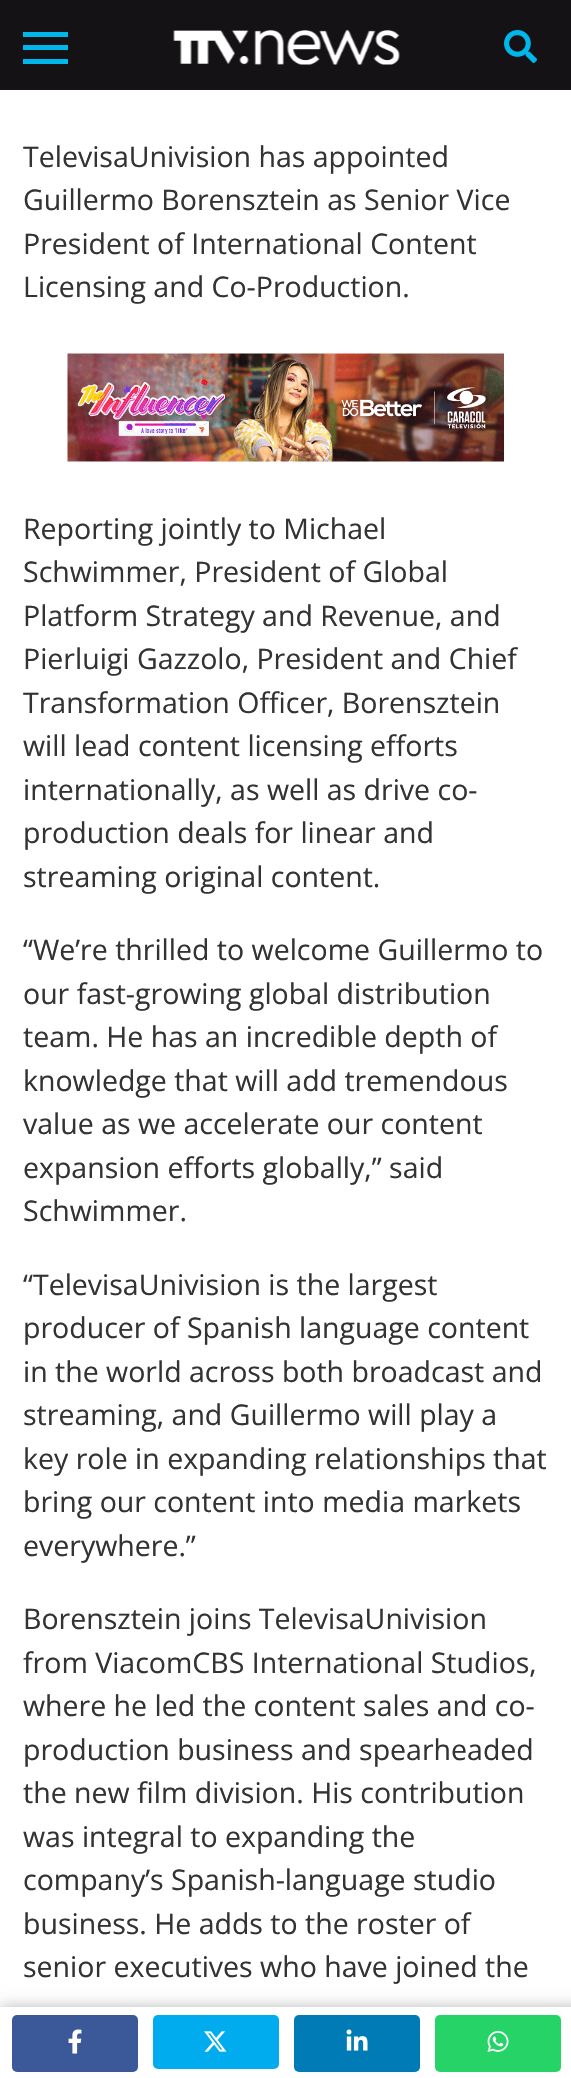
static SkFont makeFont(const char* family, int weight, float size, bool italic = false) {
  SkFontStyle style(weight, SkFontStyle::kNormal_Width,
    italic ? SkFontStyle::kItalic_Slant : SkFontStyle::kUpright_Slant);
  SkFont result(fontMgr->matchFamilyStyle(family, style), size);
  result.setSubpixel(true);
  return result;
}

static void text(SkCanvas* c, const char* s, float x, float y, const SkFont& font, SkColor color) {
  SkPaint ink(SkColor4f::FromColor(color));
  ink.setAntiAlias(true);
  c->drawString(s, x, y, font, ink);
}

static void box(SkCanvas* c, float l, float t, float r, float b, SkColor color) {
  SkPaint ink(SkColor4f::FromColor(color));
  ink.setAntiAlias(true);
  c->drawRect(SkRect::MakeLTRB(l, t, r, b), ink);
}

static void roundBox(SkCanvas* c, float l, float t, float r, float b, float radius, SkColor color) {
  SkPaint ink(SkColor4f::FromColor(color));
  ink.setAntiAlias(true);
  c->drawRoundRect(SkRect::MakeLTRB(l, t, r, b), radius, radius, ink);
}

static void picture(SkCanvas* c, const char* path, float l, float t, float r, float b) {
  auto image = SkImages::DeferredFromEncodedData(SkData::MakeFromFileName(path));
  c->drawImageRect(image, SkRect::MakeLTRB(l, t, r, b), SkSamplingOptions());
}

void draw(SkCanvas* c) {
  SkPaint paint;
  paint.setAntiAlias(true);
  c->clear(0xffffffff);
  box(c, 0, 0, 571, 90, 0xff151215);
  picture(c, "img_01.png", 173, 30, 400, 65);
  picture(c, "img_02.png", 504, 30, 537, 63);
  box(c, 23, 32, 68, 37, 0xff00b7eb);
  box(c, 23, 45, 68, 50, 0xff00b7eb);
  box(c, 23, 59, 68, 64, 0xff00b7eb);
  SkFont face1 = makeFont("Open Sans", 400, 28.5f);
  text(c, "TelevisaUnivision has appointed", 23, 167, face1, 0xff333333);
  text(c, "Guillermo Borensztein as Senior Vice", 23, 210, face1, 0xff333333);
  text(c, "President of International Content", 23, 254, face1, 0xff333333);
  text(c, "Licensing and Co-Production.", 23, 297, face1, 0xff333333);
  picture(c, "img_03.png", 67, 353, 504, 462);
  text(c, "Reporting jointly to Michael", 23, 539, face1, 0xff333333);
  text(c, "Schwimmer, President of Global", 23, 582, face1, 0xff333333);
  text(c, "Platform Strategy and Revenue, and", 23, 626, face1, 0xff333333);
  text(c, "Pierluigi Gazzolo, President and Chief", 23, 669, face1, 0xff333333);
  text(c, "Transformation Officer, Borensztein", 23, 713, face1, 0xff333333);
  text(c, "will lead content licensing efforts", 23, 756, face1, 0xff333333);
  text(c, "internationally, as well as drive co-", 23, 800, face1, 0xff333333);
  text(c, "production deals for linear and", 23, 843, face1, 0xff333333);
  text(c, "streaming original content.", 23, 887, face1, 0xff333333);
  text(c, "“We’re thrilled to welcome Guillermo to", 23, 960, face1, 0xff333333);
  text(c, "our fast-growing global distribution", 23, 1004, face1, 0xff333333);
  text(c, "team. He has an incredible depth of", 23, 1047, face1, 0xff333333);
  text(c, "knowledge that will add tremendous", 23, 1091, face1, 0xff333333);
  text(c, "value as we accelerate our content", 23, 1134, face1, 0xff333333);
  text(c, "expansion efforts globally,” said", 23, 1178, face1, 0xff333333);
  text(c, "Schwimmer.", 23, 1221, face1, 0xff333333);
  text(c, "“TelevisaUnivision is the largest", 23, 1295, face1, 0xff333333);
  text(c, "producer of Spanish language content", 23, 1338, face1, 0xff333333);
  text(c, "in the world across both broadcast and", 23, 1382, face1, 0xff333333);
  text(c, "streaming, and Guillermo will play a", 23, 1425, face1, 0xff333333);
  text(c, "key role in expanding relationships that", 23, 1469, face1, 0xff333333);
  text(c, "bring our content into media markets", 23, 1512, face1, 0xff333333);
  text(c, "everywhere.”", 23, 1556, face1, 0xff333333);
  text(c, "Borensztein joins TelevisaUnivision", 23, 1629, face1, 0xff333333);
  text(c, "from ViacomCBS International Studios,", 23, 1673, face1, 0xff333333);
  text(c, "where he led the content sales and co-", 23, 1716, face1, 0xff333333);
  text(c, "production business and spearheaded", 23, 1760, face1, 0xff333333);
  text(c, "the new film division. His contribution", 23, 1803, face1, 0xff333333);
  text(c, "was integral to expanding the", 23, 1847, face1, 0xff333333);
  text(c, "company’s Spanish-language studio", 23, 1890, face1, 0xff333333);
  text(c, "business. He adds to the roster of", 23, 1934, face1, 0xff333333);
  text(c, "senior executives who have joined the", 23, 1977, face1, 0xff333333);
  paint.setColor(0xffb9b9b9);
  paint.setMaskFilter(SkMaskFilter::MakeBlur(kNormal_SkBlurStyle, 7.5f));
  c->drawRect(SkRect::MakeLTRB(0, 2007, 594, 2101), paint);
  paint.setMaskFilter(nullptr);
  box(c, 0, 2007, 571, 2078, 0xffffffff);
  roundBox(c, 12, 2015, 138, 2072, 5, 0xff3b5998);
  picture(c, "img_04.png", 68, 2029, 82, 2054);
  roundBox(c, 153, 2015, 279, 2069, 5, 0xff00aced);
  picture(c, "img_05.png", 204, 2031, 227, 2052);
  roundBox(c, 294, 2015, 420, 2072, 5, 0xff007bb6);
  picture(c, "img_06.png", 346, 2029, 368, 2051);
  roundBox(c, 435, 2015, 561, 2072, 5, 0xff25d366);
  picture(c, "img_07.png", 487, 2031, 509, 2052);
}
